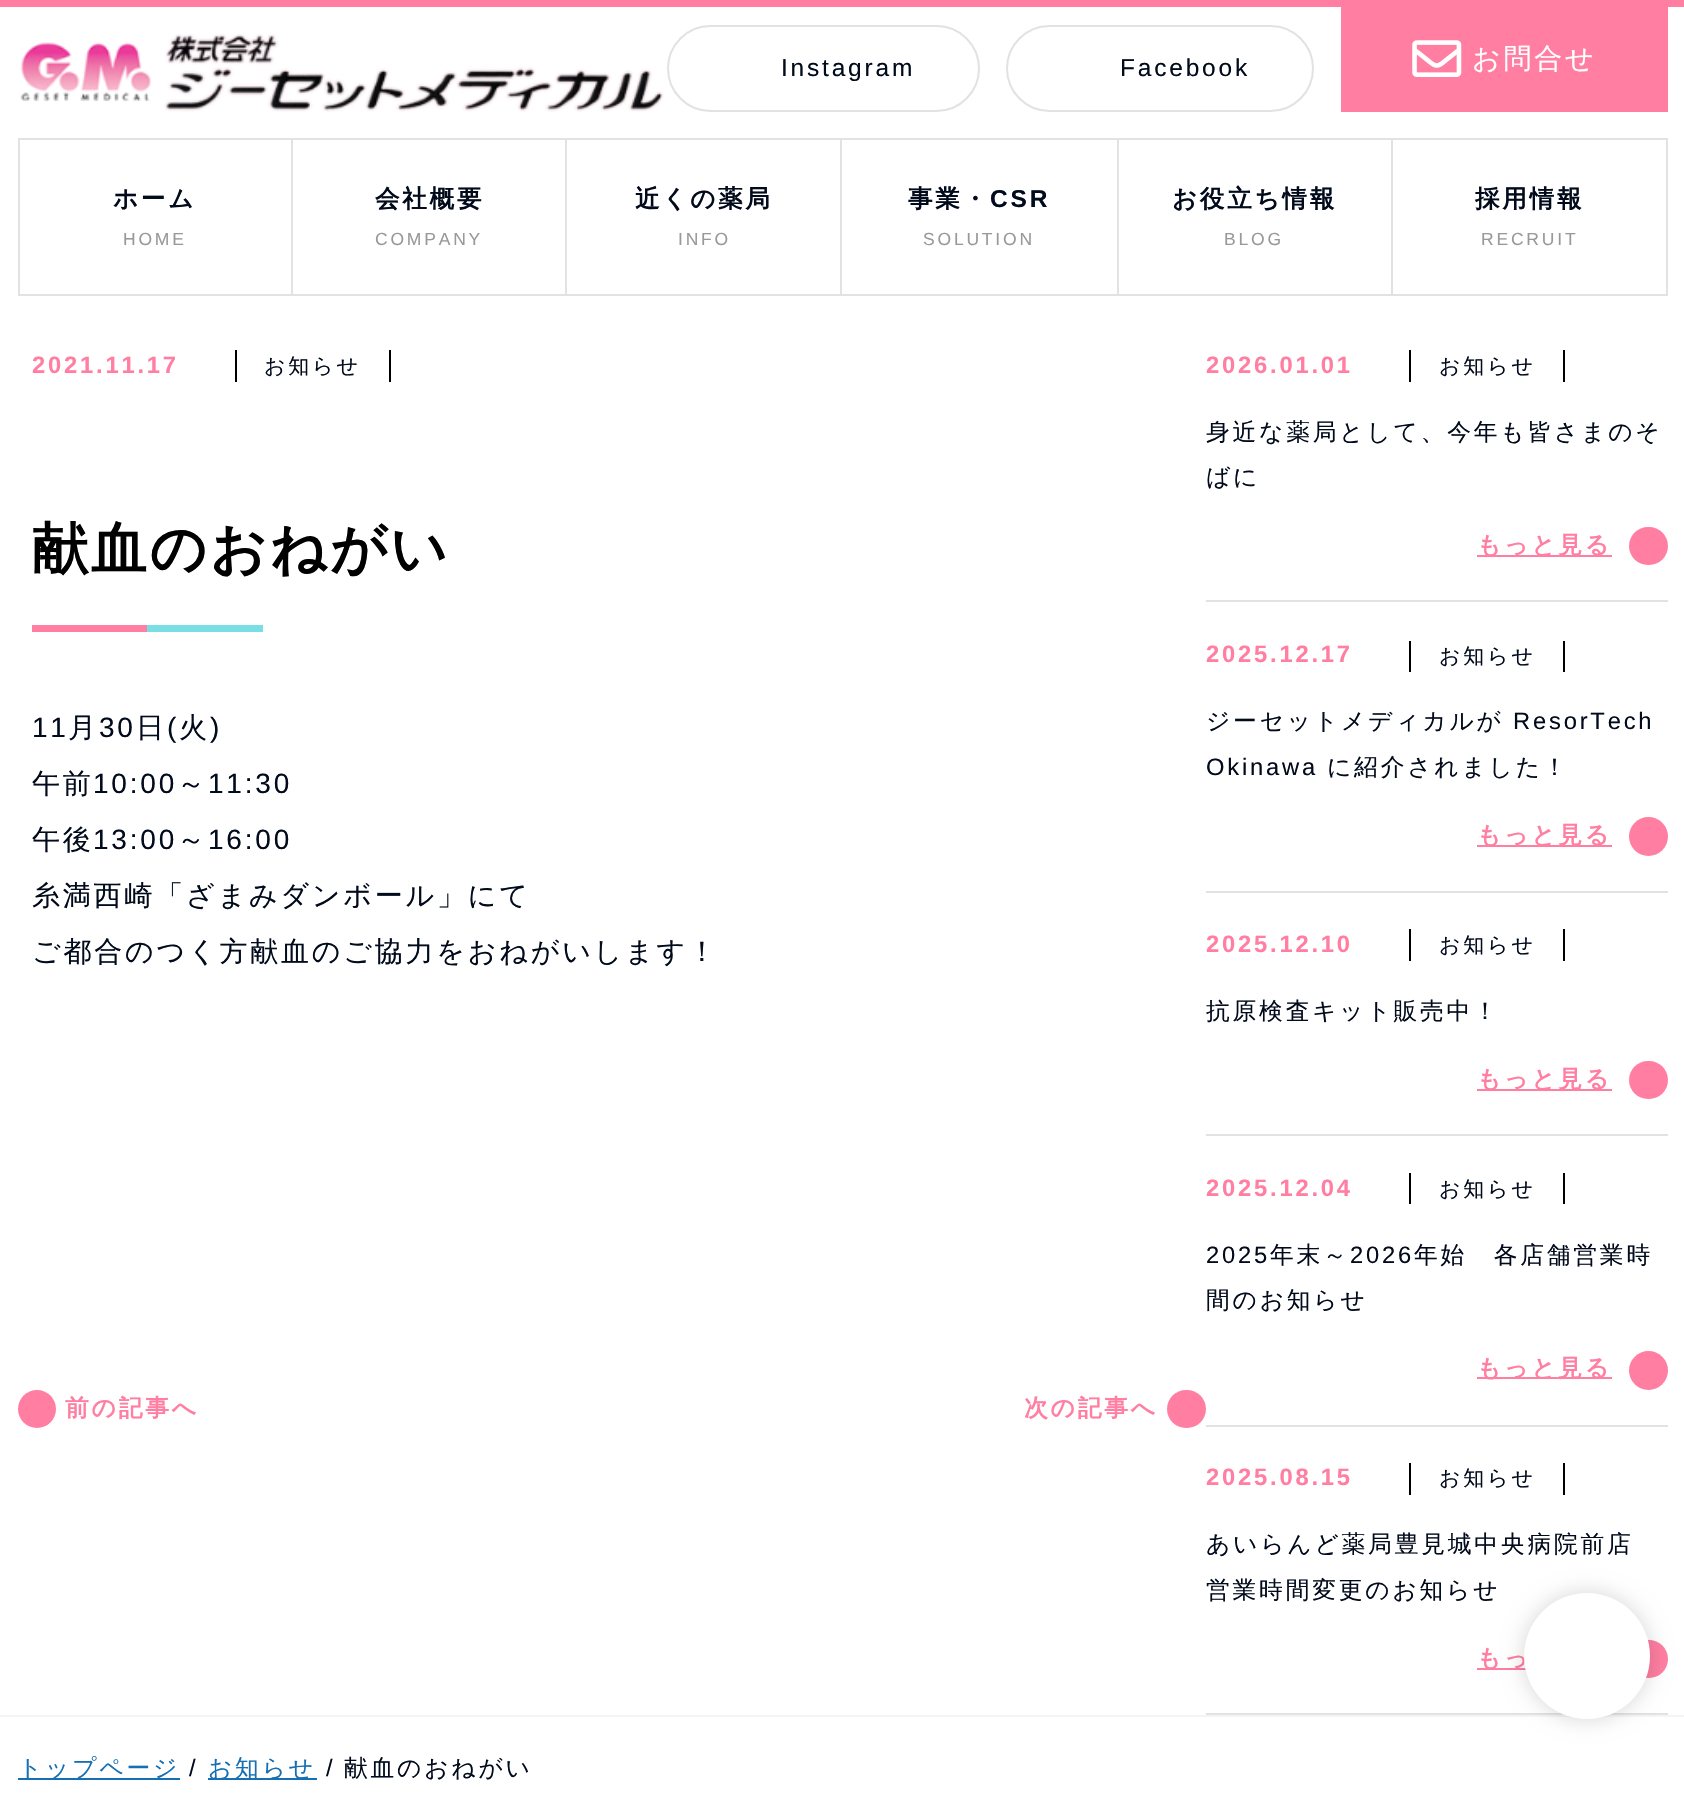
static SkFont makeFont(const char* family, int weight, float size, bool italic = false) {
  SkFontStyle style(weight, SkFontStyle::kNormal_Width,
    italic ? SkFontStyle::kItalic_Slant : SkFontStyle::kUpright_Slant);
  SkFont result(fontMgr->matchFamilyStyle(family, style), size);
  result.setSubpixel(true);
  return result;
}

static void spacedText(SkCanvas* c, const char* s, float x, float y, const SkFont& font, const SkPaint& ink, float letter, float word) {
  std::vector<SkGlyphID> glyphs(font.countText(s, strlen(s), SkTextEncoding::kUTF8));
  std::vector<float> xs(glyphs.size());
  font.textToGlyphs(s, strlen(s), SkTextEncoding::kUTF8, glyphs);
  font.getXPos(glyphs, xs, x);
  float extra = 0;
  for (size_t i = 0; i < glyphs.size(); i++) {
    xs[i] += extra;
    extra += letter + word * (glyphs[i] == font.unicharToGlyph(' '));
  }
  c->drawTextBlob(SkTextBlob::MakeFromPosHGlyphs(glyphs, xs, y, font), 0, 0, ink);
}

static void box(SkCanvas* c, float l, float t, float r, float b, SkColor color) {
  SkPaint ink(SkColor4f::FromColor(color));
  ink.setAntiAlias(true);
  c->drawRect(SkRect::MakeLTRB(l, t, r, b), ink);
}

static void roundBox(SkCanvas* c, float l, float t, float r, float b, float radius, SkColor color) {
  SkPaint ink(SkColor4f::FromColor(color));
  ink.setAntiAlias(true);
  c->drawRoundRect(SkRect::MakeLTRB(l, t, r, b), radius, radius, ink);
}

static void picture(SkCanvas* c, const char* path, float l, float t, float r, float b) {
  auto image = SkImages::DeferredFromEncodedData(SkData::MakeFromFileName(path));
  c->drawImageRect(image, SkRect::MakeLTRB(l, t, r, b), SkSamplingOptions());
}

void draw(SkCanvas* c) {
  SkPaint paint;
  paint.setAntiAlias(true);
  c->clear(0xffffffff);
  box(c, 0, 0, 1684, 7, 0xffff7ea1);
  picture(c, "img_01.png", 20, 34, 664, 112);
  paint.setStyle(SkPaint::kStroke_Style);
  paint.setStrokeWidth(2);
  paint.setColor(0xffe2e2e2);
  c->drawRoundRect(SkRect::MakeLTRB(668, 26, 979, 111), 42.5f, 42.5f, paint);
  SkFont face1 = makeFont("Liberation Sans", 400, 24.5f);
  paint.setStyle(SkPaint::kFill_Style);
  paint.setColor(0xff010b1c);
  spacedText(c, "Instagram", 781, 76, face1, paint, 2.8f, 0);
  paint.setStyle(SkPaint::kStroke_Style);
  paint.setColor(0xffe2e2e2);
  c->drawRoundRect(SkRect::MakeLTRB(1007, 26, 1313, 111), 42.5f, 42.5f, paint);
  paint.setStyle(SkPaint::kFill_Style);
  paint.setColor(0xff010b1c);
  spacedText(c, "Facebook", 1120, 76, face1, paint, 2.8f, 0);
  box(c, 1341, 7, 1668, 112, 0xffff7ea1);
  picture(c, "img_02.png", 1412, 40, 1462, 77);
  SkFont face2 = makeFont("WenQuanYi Zen Hei", 500, 28);
  paint.setColor(0xffffffff);
  spacedText(c, "お問合せ", 1472, 68, face2, paint, 2.8f, 0);
  box(c, 18, 138, 1668, 140, 0xffe2e2e2);
  box(c, 18, 294, 1668, 296, 0xffe2e2e2);
  box(c, 291, 140, 293, 294, 0xffe2e2e2);
  box(c, 18, 140, 20, 294, 0xffe2e2e2);
  SkFont face3 = makeFont("WenQuanYi Zen Hei", 700, 24.5f);
  paint.setColor(0xff010b1c);
  spacedText(c, "ホーム", 113, 207, face3, paint, 2.8f, 0);
  SkFont face4 = makeFont("Liberation Sans", 400, 17.5f);
  paint.setColor(0xff999999);
  spacedText(c, "HOME", 123, 245, face4, paint, 2.8f, 0);
  box(c, 565, 140, 567, 294, 0xffe2e2e2);
  paint.setColor(0xff010b1c);
  spacedText(c, "会社概要", 375, 207, face3, paint, 2.8f, 0);
  paint.setColor(0xff999999);
  spacedText(c, "COMPANY", 375, 245, face4, paint, 2.8f, 0);
  box(c, 840, 140, 842, 294, 0xffe2e2e2);
  paint.setColor(0xff010b1c);
  spacedText(c, "近くの薬局", 635, 207, face3, paint, 2.8f, 0);
  paint.setColor(0xff999999);
  spacedText(c, "INFO", 678, 245, face4, paint, 2.8f, 0);
  box(c, 1117, 140, 1119, 294, 0xffe2e2e2);
  paint.setColor(0xff010b1c);
  spacedText(c, "事業・", 908, 207, face3, paint, 2.8f, 0);
  SkFont face5 = makeFont("Liberation Sans", 700, 24.5f);
  spacedText(c, "CSR", 990, 207, face5, paint, 2.8f, 0);
  paint.setColor(0xff999999);
  spacedText(c, "SOLUTION", 923, 245, face4, paint, 2.8f, 0);
  box(c, 1391, 140, 1393, 294, 0xffe2e2e2);
  paint.setColor(0xff010b1c);
  spacedText(c, "お役立ち情報", 1172, 207, face3, paint, 2.8f, 0);
  paint.setColor(0xff999999);
  spacedText(c, "BLOG", 1224, 245, face4, paint, 2.8f, 0);
  box(c, 1666, 140, 1668, 294, 0xffe2e2e2);
  paint.setColor(0xff010b1c);
  spacedText(c, "採用情報", 1475, 207, face3, paint, 2.8f, 0);
  paint.setColor(0xff999999);
  spacedText(c, "RECRUIT", 1481, 245, face4, paint, 2.8f, 0);
  SkFont face6 = makeFont("Liberation Sans", 700, 23.75f);
  paint.setColor(0xffff7ea1);
  spacedText(c, "2021.11.17", 32, 373, face6, paint, 2.8f, 0);
  box(c, 389, 350, 391, 382, 0xff000000);
  box(c, 235, 350, 237, 382, 0xff000000);
  SkFont face7 = makeFont("WenQuanYi Zen Hei", 500, 21);
  paint.setColor(0xff010b1c);
  spacedText(c, "お知らせ", 264, 373, face7, paint, 2.8f, 0);
  SkFont face8 = makeFont("WenQuanYi Zen Hei", 700, 56);
  paint.setColor(0xff000000);
  spacedText(c, "献血のおねがい", 32, 568, face8, paint, 2.8f, 0);
  box(c, 32, 625, 147, 632, 0xffff7ea1);
  box(c, 147, 625, 263, 632, 0xff7adfe5);
  SkFont face9 = makeFont("Liberation Sans", 400, 28);
  paint.setColor(0xff010b1c);
  spacedText(c, "11", 32, 737, face9, paint, 2.8f, 0);
  spacedText(c, "月", 68, 737, face2, paint, 2.8f, 0);
  spacedText(c, "30", 99, 737, face9, paint, 2.8f, 0);
  spacedText(c, "日", 136, 737, face2, paint, 2.8f, 0);
  spacedText(c, "(", 167, 737, face9, paint, 2.8f, 0);
  spacedText(c, "火", 179, 737, face2, paint, 2.8f, 0);
  spacedText(c, ")", 210, 737, face9, paint, 2.8f, 0);
  spacedText(c, "午前", 32, 793, face2, paint, 2.8f, 0);
  spacedText(c, "10:00", 93, 793, face9, paint, 2.8f, 0);
  spacedText(c, "～", 177, 793, face2, paint, 2.8f, 0);
  spacedText(c, "11:30", 208, 793, face9, paint, 2.8f, 0);
  spacedText(c, "午後", 32, 849, face2, paint, 2.8f, 0);
  spacedText(c, "13:00", 93, 849, face9, paint, 2.8f, 0);
  spacedText(c, "～", 177, 849, face2, paint, 2.8f, 0);
  spacedText(c, "16:00", 208, 849, face9, paint, 2.8f, 0);
  spacedText(c, "糸満西崎「ざまみダンボール」にて", 32, 905, face2, paint, 2.8f, 0);
  spacedText(c, "ご都合のつく方献血のご協力をおねがいします！", 32, 961, face2, paint, 2.8f, 0);
  paint.setColor(0xffff7ea1);
  c->drawCircle(37, 1409, 19, paint);
  SkFont face10 = makeFont("WenQuanYi Zen Hei", 700, 23.75f);
  spacedText(c, "前の記事へ", 65, 1416, face10, paint, 2.8f, 0);
  spacedText(c, "次の記事へ", 1024, 1416, face10, paint, 2.8f, 0);
  roundBox(c, 1167, 1390, 1206, 1428, 19, 0xffff7ea1);
  box(c, 1206, 600, 1668, 602, 0xffe2e2e2);
  spacedText(c, "2026.01.01", 1206, 373, face6, paint, 2.8f, 0);
  box(c, 1563, 350, 1565, 382, 0xff000000);
  box(c, 1409, 350, 1411, 382, 0xff000000);
  paint.setColor(0xff010b1c);
  spacedText(c, "お知らせ", 1439, 373, face7, paint, 2.8f, 0);
  SkFont face11 = makeFont("WenQuanYi Zen Hei", 500, 23.75f);
  spacedText(c, "身近な薬局として、今年も皆さまのそ", 1206, 440, face11, paint, 2.8f, 0);
  spacedText(c, "ばに", 1206, 485, face11, paint, 2.8f, 0);
  box(c, 1477, 555, 1612, 557, 0xffff7ea1);
  paint.setColor(0xffff7ea1);
  spacedText(c, "もっと見る", 1477, 553, face10, paint, 2.8f, 0);
  roundBox(c, 1629, 527, 1668, 565, 19, 0xffff7ea1);
  box(c, 1206, 891, 1668, 893, 0xffe2e2e2);
  spacedText(c, "2025.12.17", 1206, 662, face6, paint, 2.8f, 0);
  box(c, 1563, 641, 1565, 672, 0xff000000);
  box(c, 1409, 641, 1411, 672, 0xff000000);
  paint.setColor(0xff010b1c);
  spacedText(c, "お知らせ", 1439, 663, face7, paint, 2.8f, 0);
  spacedText(c, "ジーセットメディカルが", 1206, 729, face11, paint, 2.8f, 0);
  SkFont face12 = makeFont("Liberation Sans", 400, 23.75f);
  spacedText(c, "ResorTech", 1513, 729, face12, paint, 2.8f, 0);
  spacedText(c, "Okinawa", 1206, 775, face12, paint, 2.8f, 0);
  spacedText(c, "に紹介されました！", 1327, 775, face11, paint, 2.8f, 0);
  box(c, 1477, 845, 1612, 847, 0xffff7ea1);
  paint.setColor(0xffff7ea1);
  spacedText(c, "もっと見る", 1477, 843, face10, paint, 2.8f, 0);
  c->drawCircle(1648.5f, 836.5f, 19.5f, paint);
  box(c, 1206, 1134, 1668, 1136, 0xffe2e2e2);
  spacedText(c, "2025.12.10", 1206, 952, face6, paint, 2.8f, 0);
  box(c, 1563, 929, 1565, 961, 0xff000000);
  box(c, 1409, 929, 1411, 961, 0xff000000);
  paint.setColor(0xff010b1c);
  spacedText(c, "お知らせ", 1439, 952, face7, paint, 2.8f, 0);
  spacedText(c, "抗原検査キット販売中！", 1206, 1019, face11, paint, 2.8f, 0);
  box(c, 1477, 1089, 1612, 1091, 0xffff7ea1);
  paint.setColor(0xffff7ea1);
  spacedText(c, "もっと見る", 1477, 1087, face10, paint, 2.8f, 0);
  roundBox(c, 1629, 1061, 1668, 1099, 19, 0xffff7ea1);
  box(c, 1206, 1425, 1668, 1427, 0xffe2e2e2);
  spacedText(c, "2025.12.04", 1206, 1196, face6, paint, 2.8f, 0);
  box(c, 1563, 1173, 1565, 1204, 0xff000000);
  box(c, 1409, 1173, 1411, 1204, 0xff000000);
  paint.setColor(0xff010b1c);
  spacedText(c, "お知らせ", 1439, 1196, face7, paint, 2.8f, 0);
  spacedText(c, "2025", 1206, 1263, face12, paint, 2.8f, 0);
  spacedText(c, "年末～", 1270, 1263, face11, paint, 2.8f, 0);
  spacedText(c, "2026", 1350, 1263, face12, paint, 2.8f, 0);
  spacedText(c, "年始　各店舗営業時", 1414, 1263, face11, paint, 2.8f, 0);
  spacedText(c, "間のお知らせ", 1206, 1308, face11, paint, 2.8f, 0);
  box(c, 1477, 1377, 1612, 1379, 0xffff7ea1);
  paint.setColor(0xffff7ea1);
  spacedText(c, "もっと見る", 1477, 1376, face10, paint, 2.8f, 0);
  c->drawCircle(1648.5f, 1370.5f, 19.5f, paint);
  box(c, 1206, 1713, 1668, 1715, 0xffe2e2e2);
  spacedText(c, "2025.08.15", 1206, 1485, face6, paint, 2.8f, 0);
  box(c, 1563, 1463, 1565, 1495, 0xff000000);
  box(c, 1409, 1463, 1411, 1495, 0xff000000);
  paint.setColor(0xff010b1c);
  spacedText(c, "お知らせ", 1439, 1485, face7, paint, 2.8f, 0);
  spacedText(c, "あいらんど薬局豊見城中央病院前店", 1206, 1552, face11, paint, 2.8f, 0);
  spacedText(c, "営業時間変更のお知らせ", 1206, 1598, face11, paint, 2.8f, 0);
  box(c, 1477, 1668, 1526, 1670, 0xffff7ea1);
  paint.setColor(0xffff7ea1);
  spacedText(c, "もっ", 1477, 1666, face10, paint, 2.8f, 0);
  roundBox(c, 1629, 1640, 1668, 1678, 19, 0xffff7ea1);
  box(c, 0, 1715, 1684, 1717, 0xfff5f5f5);
  paint.setColor(0x29000000);
  paint.setMaskFilter(SkMaskFilter::MakeBlur(kNormal_SkBlurStyle, 10.5f));
  c->drawRoundRect(SkRect::MakeLTRB(1524, 1593, 1650, 1719), 63, 63, paint);
  paint.setMaskFilter(nullptr);
  paint.setColor(0xffffffff);
  c->drawCircle(1587, 1656, 63, paint);
  box(c, 18, 1778, 180, 1780, 0xff156fb2);
  paint.setColor(0xff156fb2);
  spacedText(c, "トップページ", 18, 1776, face11, paint, 2.8f, 0);
  paint.setColor(0xff010b1c);
  spacedText(c, "/", 189, 1776, face12, paint, 2.8f, 0);
  box(c, 208, 1778, 317, 1780, 0xff156fb2);
  paint.setColor(0xff156fb2);
  spacedText(c, "お知らせ", 208, 1776, face11, paint, 2.8f, 0);
  paint.setColor(0xff010b1c);
  spacedText(c, "/", 326, 1776, face12, paint, 2.8f, 0);
  spacedText(c, "献血のおねがい", 344, 1776, face11, paint, 2.8f, 0);
}
